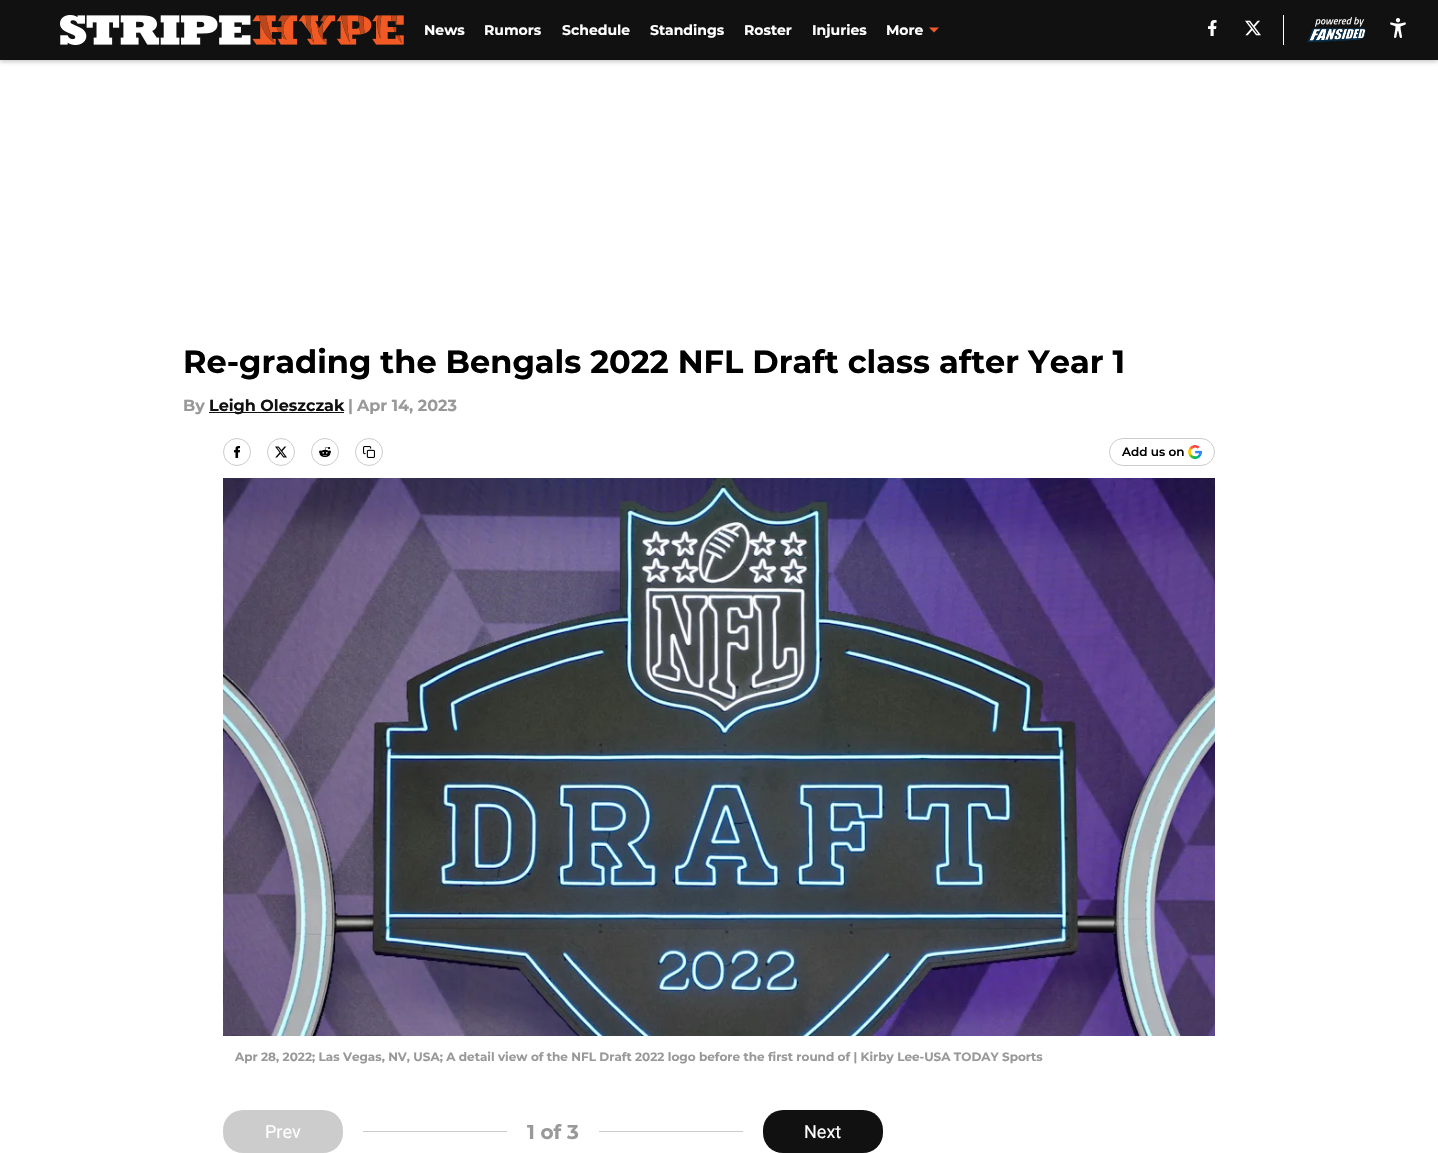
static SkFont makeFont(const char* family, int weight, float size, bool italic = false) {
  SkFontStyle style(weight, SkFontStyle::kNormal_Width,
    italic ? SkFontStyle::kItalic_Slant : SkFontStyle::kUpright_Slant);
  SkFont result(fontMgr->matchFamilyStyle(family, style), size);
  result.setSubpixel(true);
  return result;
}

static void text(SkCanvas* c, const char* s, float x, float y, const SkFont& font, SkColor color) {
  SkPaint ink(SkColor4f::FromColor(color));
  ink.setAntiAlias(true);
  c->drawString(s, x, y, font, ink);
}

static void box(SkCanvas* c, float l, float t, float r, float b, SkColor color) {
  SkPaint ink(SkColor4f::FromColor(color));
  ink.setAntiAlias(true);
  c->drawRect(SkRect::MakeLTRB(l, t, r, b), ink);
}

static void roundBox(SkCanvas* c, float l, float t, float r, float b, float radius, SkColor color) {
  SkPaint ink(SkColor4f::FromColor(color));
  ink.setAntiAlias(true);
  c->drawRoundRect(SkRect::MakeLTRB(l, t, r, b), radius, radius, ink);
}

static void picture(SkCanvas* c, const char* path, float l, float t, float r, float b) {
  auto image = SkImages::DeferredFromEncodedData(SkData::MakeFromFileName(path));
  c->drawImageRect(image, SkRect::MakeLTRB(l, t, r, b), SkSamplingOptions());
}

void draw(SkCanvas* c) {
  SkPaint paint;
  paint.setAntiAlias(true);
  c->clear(0xffffffff);
  paint.setColor(0x33000000);
  paint.setMaskFilter(SkMaskFilter::MakeBlur(kNormal_SkBlurStyle, 2));
  c->drawRect(SkRect::MakeLTRB(0, 2, 1438, 62), paint);
  paint.setMaskFilter(nullptr);
  box(c, 0, 0, 1438, 60, 0xff111111);
  picture(c, "img_01.png", 60, 15, 404, 45);
  SkFont face1 = makeFont("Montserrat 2", 100, 14);
  text(c, "News", 424, 35, face1, 0xffffffff);
  text(c, "Rumors", 484, 35, face1, 0xffffffff);
  text(c, "Schedule", 562, 35, face1, 0xffffffff);
  text(c, "Standings", 650, 35, face1, 0xffffffff);
  text(c, "Roster", 744, 35, face1, 0xffffffff);
  text(c, "Injuries", 812, 35, face1, 0xffffffff);
  text(c, "More", 886, 35, face1, 0xffffffff);
  paint.setColor(0xfff15a24);
  c->drawPath(SkPathBuilder(SkPathFillType::kEvenOdd).moveTo(929, 27.5f).lineTo(934, 32.5f).lineTo(939, 27.5f).close().detach(), paint);
  picture(c, "img_02.png", 1208, 20, 1217, 36);
  picture(c, "img_03.png", 1245, 20, 1261, 36);
  box(c, 1283, 15, 1284, 45, 0xffffffff);
  picture(c, "img_04.png", 1307, 17, 1366, 43);
  picture(c, "img_05.png", 1390, 18, 1406, 38);
  SkFont face2 = makeFont("Montserrat 2", 100, 32);
  text(c, "Re-grading the Bengals 2022 NFL Draft class after Year 1", 183, 373, face2, 0xff000000);
  SkFont face3 = makeFont("Montserrat 2", 100, 16);
  text(c, "By", 183, 411, face3, 0xff999999);
  box(c, 209, 412, 344, 413, 0xff111111);
  text(c, "Leigh Oleszczak", 209, 411, face3, 0xff111111);
  text(c, "|", 348, 411, face3, 0xff999999);
  text(c, "Apr 14, 2023", 357, 411, face3, 0xff999999);
  paint.setStyle(SkPaint::kStroke_Style);
  paint.setStrokeWidth(1);
  paint.setColor(0xffcccccc);
  c->drawCircle(237, 452, 13.5f, paint);
  picture(c, "img_06.png", 233, 446, 241, 458);
  c->drawCircle(281, 452, 13.5f, paint);
  picture(c, "img_07.png", 275, 446, 287, 458);
  c->drawCircle(325, 452, 13.5f, paint);
  picture(c, "img_08.png", 319, 446, 331, 458);
  c->drawCircle(369, 452, 13.5f, paint);
  picture(c, "img_09.png", 363, 446, 375, 458);
  c->drawRoundRect(SkRect::MakeLTRB(1109.5f, 438.5f, 1214.5f, 465.5f), 13.5f, 13.5f, paint);
  SkFont face4 = makeFont("Montserrat", 100, 12);
  text(c, "Add us on", 1122, 456, face4, 0xff000000);
  picture(c, "img_10.png", 1188, 445, 1202, 459);
  picture(c, "img_11.png", 223, 478, 1215, 1036);
  SkFont face5 = makeFont("Montserrat 2", 100, 12);
  text(c, "Apr 28, 2022; Las Vegas, NV, USA; A detail view of the NFL Draft 2022 logo before the first round of | Kirby Lee-USA TODAY Sports", 235, 1061, face5, 0xff999999);
  roundBox(c, 223, 1110, 343, 1153, 20, 0xffcccccc);
  SkFont face6 = makeFont("Roboto", 400, 18);
  text(c, "Prev", 265, 1138, face6, 0xffffffff);
  box(c, 363, 1131, 507, 1132, 0xffcccccc);
  SkFont face7 = makeFont("Montserrat 2", 100, 20);
  text(c, "1 of 3", 527, 1139, face7, 0xff999999);
  box(c, 599, 1131, 743, 1132, 0xffcccccc);
  roundBox(c, 763, 1110, 883, 1153, 20, 0xff111111);
  text(c, "Next", 804, 1138, face6, 0xffffffff);
}
